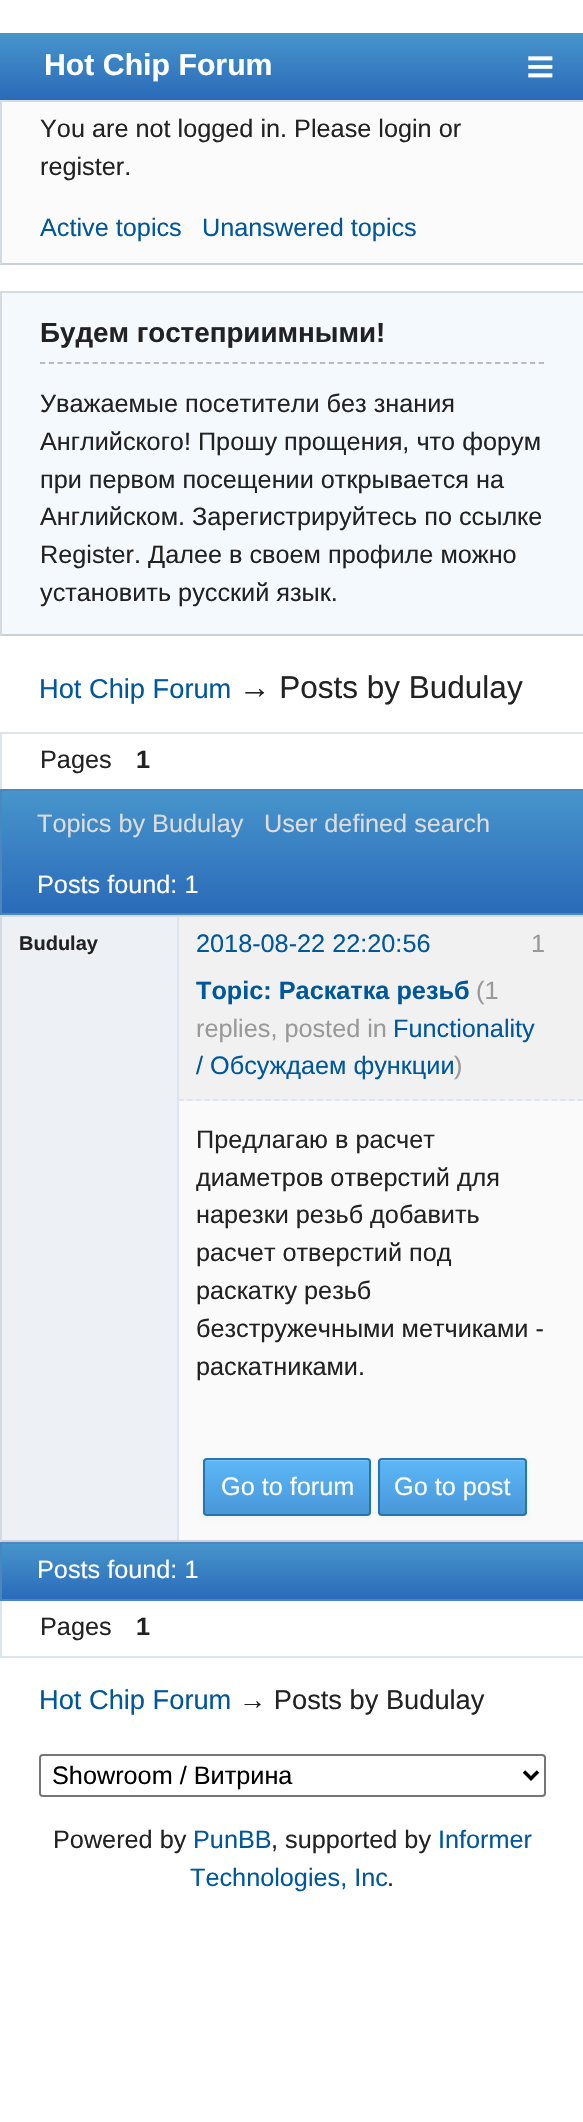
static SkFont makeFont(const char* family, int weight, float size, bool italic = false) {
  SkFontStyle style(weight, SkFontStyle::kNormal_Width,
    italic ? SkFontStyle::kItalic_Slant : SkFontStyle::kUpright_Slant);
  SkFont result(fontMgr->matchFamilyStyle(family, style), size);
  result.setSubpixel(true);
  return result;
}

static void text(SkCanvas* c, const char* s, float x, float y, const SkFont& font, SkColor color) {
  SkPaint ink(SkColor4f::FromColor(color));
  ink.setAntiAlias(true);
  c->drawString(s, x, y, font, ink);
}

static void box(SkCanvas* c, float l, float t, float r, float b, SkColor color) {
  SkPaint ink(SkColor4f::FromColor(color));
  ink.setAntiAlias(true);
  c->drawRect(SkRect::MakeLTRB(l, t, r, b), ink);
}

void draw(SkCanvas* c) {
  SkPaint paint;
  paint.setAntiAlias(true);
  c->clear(0xffffffff);
  {
    const SkColor colors[] = {0xff2a6ab8, 0xff4795cc};
    const float stops[] = {0, 1};
    const SkPoint ends[] = {{292, 100}, {292, 33}};
    paint.setShader(SkGradientShader::MakeLinear(ends, colors, stops, 2, SkTileMode::kClamp));
    paint.setAlpha(255);
  }
  c->drawRect(SkRect::MakeLTRB(0, 33, 583, 100), paint);
  SkFont face1 = makeFont("Liberation Sans", 700, 30.25f);
  text(c, "Hot Chip Forum", 44, 75, face1, 0xffffffff);
  SkFont face2 = makeFont("Liberation Sans", 400, 49);
  text(c, "≡", 526, 83, face2, 0xffffffff);
  box(c, 2, 102, 583, 263, 0xfffbfbfb);
  box(c, 0, 100, 583, 102, 0xffd3dae1);
  box(c, 0, 263, 583, 265, 0xffcbd1d8);
  box(c, 0, 100, 2, 264, 0xffd3dae1);
  SkFont face3 = makeFont("Liberation Sans", 400, 25.25f);
  text(c, "You are not logged in. Please login or", 40, 137, face3, 0xff222222);
  text(c, "register.", 40, 175, face3, 0xff222222);
  text(c, "Active topics", 40, 236, face3, 0xff00579c);
  text(c, "Unanswered topics", 202, 236, face3, 0xff00579c);
  box(c, 2, 293, 583, 634, 0xfff4f9fd);
  box(c, 0, 291, 583, 293, 0xffd3dae1);
  box(c, 0, 634, 583, 636, 0xffcbd1d8);
  box(c, 0, 291, 2, 635, 0xffd3dae1);
  paint.setStyle(SkPaint::kStroke_Style);
  paint.setStrokeWidth(1.8f);
  paint.setShader(nullptr);
  paint.setColor(0xffbbbbbb);
  paint.setPathEffect(SkDashPathEffect::Make({{5.25f, 3.5f}}, 0));
  c->drawPath(SkPathBuilder().moveTo(40, 363).lineTo(544, 363).detach(), paint);
  paint.setPathEffect(nullptr);
  SkFont face4 = makeFont("Liberation Sans", 700, 27.75f);
  text(c, "Будем гостеприимными!", 40, 342, face4, 0xff222222);
  text(c, "Уважаемые посетители без знания", 40, 412, face3, 0xff222222);
  text(c, "Английского! Прошу прощения, что форум", 40, 450, face3, 0xff222222);
  text(c, "при первом посещении открывается на", 40, 488, face3, 0xff222222);
  text(c, "Английском. Зарегистрируйтесь по ссылке", 40, 525, face3, 0xff222222);
  text(c, "Register. Далее в своем профиле можно", 40, 563, face3, 0xff222222);
  text(c, "установить русский язык.", 40, 601, face3, 0xff222222);
  SkFont face5 = makeFont("Liberation Sans", 400, 27.25f);
  text(c, "Hot Chip Forum", 39, 698, face5, 0xff00579c);
  SkFont face6 = makeFont("Liberation Sans", 400, 31.5f);
  text(c, "→ Posts by Budulay", 239, 698, face6, 0xff222222);
  box(c, 0, 732, 583, 734, 0xffdde4eb);
  box(c, 0, 732, 2, 789, 0xffdde4eb);
  text(c, "Pages", 40, 768, face3, 0xff222222);
  SkFont face7 = makeFont("Liberation Sans", 700, 25.25f);
  text(c, "1", 136, 768, face7, 0xff222222);
  paint.setStyle(SkPaint::kFill_Style);
  {
    const SkColor colors[] = {0xff2a6ab8, 0xff4795cc};
    const float stops[] = {0, 1};
    const SkPoint ends[] = {{292, 914}, {292, 791}};
    paint.setShader(SkGradientShader::MakeLinear(ends, colors, stops, 2, SkTileMode::kClamp));
    paint.setAlpha(255);
  }
  c->drawRect(SkRect::MakeLTRB(2, 791, 583, 913), paint);
  paint.setStyle(SkPaint::kStroke_Style);
  paint.setStrokeWidth(2);
  paint.setShader(nullptr);
  paint.setColor(0xff4a86c1);
  c->drawRect(SkRect::MakeLTRB(1, 790, 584, 914), paint);
  text(c, "Topics by Budulay", 37, 832, face3, 0xffdddddd);
  text(c, "User defined search", 264, 832, face3, 0xffdddddd);
  text(c, "Posts found: 1", 37, 893, face3, 0xffffffff);
  box(c, 0, 915, 583, 917, 0xffd3dae1);
  box(c, 0, 1540, 583, 1542, 0xffcbd1d8);
  box(c, 0, 915, 2, 1542, 0xffd3dae1);
  box(c, 2, 917, 177, 1540, 0xffedf1f5);
  box(c, 177, 917, 179, 1540, 0xffdde4eb);
  box(c, 179, 917, 583, 973, 0xfff1f1f1);
  paint.setStrokeWidth(1.8f);
  paint.setColor(0xffdde4eb);
  paint.setPathEffect(SkDashPathEffect::Make({{5.25f, 3.43f}}, 0));
  c->drawPath(SkPathBuilder().moveTo(178.5f, 974).lineTo(583, 974).detach(), paint);
  paint.setPathEffect(nullptr);
  SkFont face8 = makeFont("Liberation Sans", 700, 20);
  text(c, "Budulay", 19, 950, face8, 0xff222222);
  text(c, "2018-08-22 22:20:56", 196, 952, face3, 0xff00579c);
  text(c, "1", 531, 952, face3, 0xff999999);
  box(c, 179, 973, 583, 1101, 0xfff1f1f1);
  paint.setPathEffect(SkDashPathEffect::Make({{5.25f, 3.43f}}, 0));
  c->drawPath(SkPathBuilder().moveTo(178.5f, 1100).lineTo(583, 1100).detach(), paint);
  paint.setPathEffect(nullptr);
  text(c, "Topic: Раскатка резьб", 196, 999, face7, 0xff00579c);
  text(c, "(1", 476, 999, face3, 0xff999999);
  text(c, "replies, posted in", 196, 1037, face3, 0xff999999);
  text(c, "Functionality", 393, 1037, face3, 0xff00579c);
  text(c, "/ Обсуждаем функции", 196, 1074, face3, 0xff00579c);
  text(c, ")", 454, 1074, face3, 0xff999999);
  box(c, 179, 1101, 583, 1540, 0xfffafafa);
  text(c, "Предлагаю в расчет", 196, 1148, face3, 0xff222222);
  text(c, "диаметров отверстий для", 196, 1186, face3, 0xff222222);
  text(c, "нарезки резьб добавить", 196, 1223, face3, 0xff222222);
  text(c, "расчет отверстий под", 196, 1261, face3, 0xff222222);
  text(c, "раскатку резьб", 196, 1299, face3, 0xff222222);
  text(c, "безстружечными метчиками -", 196, 1337, face3, 0xff222222);
  text(c, "раскатниками.", 196, 1375, face3, 0xff222222);
  paint.setStyle(SkPaint::kFill_Style);
  paint.setColor(0x0d000000);
  paint.setMaskFilter(SkMaskFilter::MakeBlur(kNormal_SkBlurStyle, 2));
  c->drawRoundRect(SkRect::MakeLTRB(203, 1460, 371, 1517), 4, 4, paint);
  paint.setMaskFilter(nullptr);
  c->save();
  c->clipPath(SkPathBuilder().moveTo(207, 1458).lineTo(367, 1458).cubicTo(369, 1458, 371, 1460, 371, 1462).lineTo(371, 1512).cubicTo(371, 1514, 369, 1516, 367, 1516).lineTo(207, 1516).cubicTo(205, 1516, 203, 1514, 203, 1512).lineTo(203, 1462).cubicTo(203, 1460, 205, 1458, 207, 1458).close().detach(), true);
  {
    const SkColor colors[] = {0xff5cb7f7, 0xff4897d9};
    const float stops[] = {0, 1};
    const SkPoint ends[] = {{287, 1460}, {287, 1514}};
    paint.setShader(SkGradientShader::MakeLinear(ends, colors, stops, 2, SkTileMode::kClamp));
    paint.setAlpha(255);
  }
  c->drawRect(SkRect::MakeLTRB(203, 1460, 371, 1514), paint);
  c->restore();
  paint.setShader(nullptr);
  paint.setColor(0xff7dc5f9);
  c->drawPath(SkPathBuilder().moveTo(206, 1461).lineTo(368, 1461).lineTo(369, 1463).cubicTo(369, 1462, 369, 1460, 367, 1460).lineTo(207, 1460).cubicTo(205, 1460, 205, 1462, 205, 1463).close().detach(), paint);
  paint.setStyle(SkPaint::kStroke_Style);
  paint.setStrokeWidth(2);
  paint.setColor(0xff2575ae);
  c->drawRoundRect(SkRect::MakeLTRB(204, 1459, 370, 1515), 3, 3, paint);
  text(c, "Go to forum", 221, 1495, face3, 0xffffffff);
  paint.setStyle(SkPaint::kFill_Style);
  paint.setColor(0x0d000000);
  paint.setMaskFilter(SkMaskFilter::MakeBlur(kNormal_SkBlurStyle, 2));
  c->drawRoundRect(SkRect::MakeLTRB(378, 1460, 527, 1517), 4, 4, paint);
  paint.setMaskFilter(nullptr);
  c->save();
  c->clipPath(SkPathBuilder().moveTo(382, 1458).lineTo(523, 1458).cubicTo(525, 1458, 527, 1460, 527, 1462).lineTo(527, 1512).cubicTo(527, 1514, 525, 1516, 523, 1516).lineTo(382, 1516).cubicTo(380, 1516, 378, 1514, 378, 1512).lineTo(378, 1462).cubicTo(378, 1460, 380, 1458, 382, 1458).close().detach(), true);
  {
    const SkColor colors[] = {0xff5cb7f7, 0xff4897d9};
    const float stops[] = {0, 1};
    const SkPoint ends[] = {{452, 1460}, {452, 1514}};
    paint.setShader(SkGradientShader::MakeLinear(ends, colors, stops, 2, SkTileMode::kClamp));
    paint.setAlpha(255);
  }
  c->drawRect(SkRect::MakeLTRB(378, 1460, 527, 1514), paint);
  c->restore();
  paint.setShader(nullptr);
  paint.setColor(0x33ffffff);
  c->drawPath(SkPathBuilder().moveTo(382, 1461).lineTo(523, 1461).cubicTo(524, 1461, 525, 1462, 525, 1463).cubicTo(525, 1455, 503, 1460, 500, 1460).lineTo(381, 1460).cubicTo(380, 1461, 380, 1462, 380, 1463).cubicTo(380, 1462, 381, 1461, 382, 1461).close().detach(), paint);
  paint.setStyle(SkPaint::kStroke_Style);
  paint.setColor(0xff2575ae);
  c->drawRoundRect(SkRect::MakeLTRB(379, 1459, 526, 1515), 3, 3, paint);
  text(c, "Go to post", 394, 1495, face3, 0xffffffff);
  paint.setStyle(SkPaint::kFill_Style);
  {
    const SkColor colors[] = {0xff2a6ab8, 0xff4795cc};
    const float stops[] = {0, 1};
    const SkPoint ends[] = {{292, 1600}, {292, 1544}};
    paint.setShader(SkGradientShader::MakeLinear(ends, colors, stops, 2, SkTileMode::kClamp));
    paint.setAlpha(255);
  }
  c->drawRect(SkRect::MakeLTRB(2, 1544, 583, 1599), paint);
  paint.setStyle(SkPaint::kStroke_Style);
  paint.setShader(nullptr);
  paint.setColor(0xff4a86c1);
  c->drawRect(SkRect::MakeLTRB(1, 1543, 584, 1600), paint);
  text(c, "Posts found: 1", 37, 1578, face3, 0xffffffff);
  box(c, 0, 1656, 583, 1658, 0xffdde4eb);
  box(c, 0, 1601, 2, 1657, 0xffdde4eb);
  text(c, "Pages", 40, 1635, face3, 0xff222222);
  text(c, "1", 136, 1635, face7, 0xff222222);
  text(c, "Hot Chip Forum", 39, 1709, face5, 0xff00579c);
  text(c, "→ Posts by Budulay", 239, 1709, face5, 0xff222222);
  paint.setColor(0xff767676);
  c->drawRoundRect(SkRect::MakeLTRB(40, 1755, 545, 1796), 3, 3, paint);
  paint.setStrokeWidth(3.5f);
  paint.setColor(0xff000000);
  c->drawPath(SkPathBuilder().moveTo(524, 1771.5f).lineTo(531, 1778.5f).lineTo(538, 1771.5f).detach(), paint);
  text(c, "Showroom / Витрина", 52, 1784, face3, 0xff000000);
  text(c, "Powered by", 53, 1848, face3, 0xff222222);
  text(c, "PunBB", 193, 1848, face3, 0xff00579c);
  text(c, ", supported by", 271, 1848, face3, 0xff222222);
  text(c, "Informer", 438, 1848, face3, 0xff00579c);
  text(c, "Technologies, Inc", 190, 1886, face3, 0xff00579c);
  text(c, ".", 387, 1886, face3, 0xff222222);
}
